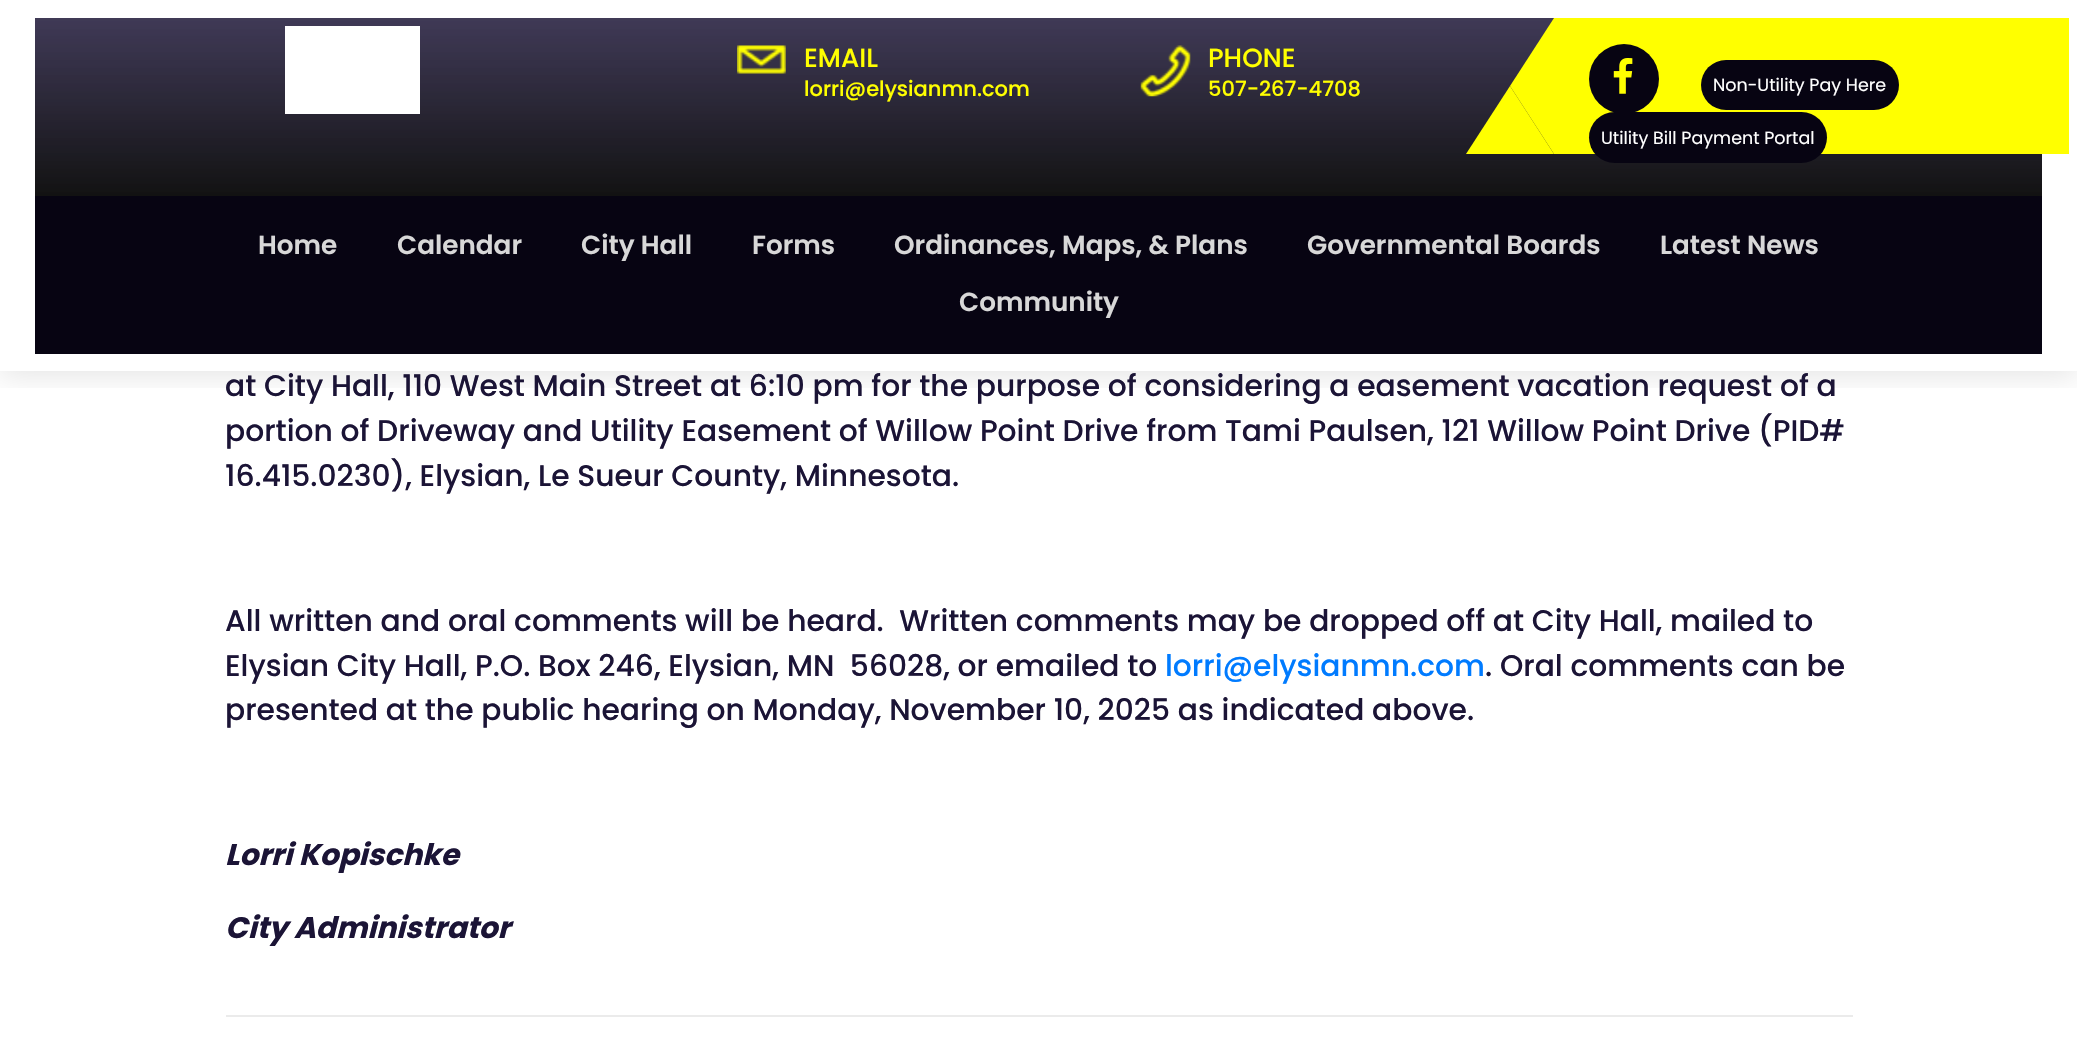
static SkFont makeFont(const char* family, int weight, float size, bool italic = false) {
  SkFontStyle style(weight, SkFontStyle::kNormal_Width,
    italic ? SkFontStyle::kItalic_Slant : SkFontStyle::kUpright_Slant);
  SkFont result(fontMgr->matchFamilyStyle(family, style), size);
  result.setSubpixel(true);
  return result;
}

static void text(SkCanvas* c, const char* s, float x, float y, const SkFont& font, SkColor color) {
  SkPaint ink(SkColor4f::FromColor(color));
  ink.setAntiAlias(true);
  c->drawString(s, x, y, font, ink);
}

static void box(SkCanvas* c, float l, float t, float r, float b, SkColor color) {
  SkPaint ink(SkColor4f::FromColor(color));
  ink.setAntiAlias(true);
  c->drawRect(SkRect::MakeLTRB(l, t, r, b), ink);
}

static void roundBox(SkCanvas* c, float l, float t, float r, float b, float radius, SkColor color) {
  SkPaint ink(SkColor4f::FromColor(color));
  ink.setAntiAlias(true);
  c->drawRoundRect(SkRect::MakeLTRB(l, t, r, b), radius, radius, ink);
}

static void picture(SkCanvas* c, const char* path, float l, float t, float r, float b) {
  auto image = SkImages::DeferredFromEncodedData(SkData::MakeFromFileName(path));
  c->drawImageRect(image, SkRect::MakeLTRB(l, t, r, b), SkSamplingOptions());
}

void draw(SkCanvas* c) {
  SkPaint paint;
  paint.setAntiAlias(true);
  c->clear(0xffffffff);
  c->save();
  c->clipRect(SkRect::MakeLTRB(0, 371, 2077, 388));
  paint.setColor(0x1a000000);
  paint.setMaskFilter(SkMaskFilter::MakeBlur(kNormal_SkBlurStyle, 14));
  c->drawRect(SkRect::MakeLTRB(0, 5, 2077, 376), paint);
  paint.setMaskFilter(nullptr);
  c->restore();
  {
    const SkColor colors[] = {0xd61b1436, 0xed000000};
    const float stops[] = {0, 1};
    const SkPoint ends[] = {{1039, 17}, {1039, 196}};
    paint.setShader(SkGradientShader::MakeLinear(ends, colors, stops, 2, SkTileMode::kClamp));
    paint.setAlpha(255);
  }
  c->drawRect(SkRect::MakeLTRB(35, 18, 2042, 196), paint);
  box(c, 285, 26, 420, 114, 0xffffffff);
  picture(c, "img_01.png", 737, 45, 786, 74);
  SkFont face1 = makeFont("Poppins", 500, 26.25f);
  text(c, "EMAIL", 804, 67, face1, 0xffffff00);
  SkFont face2 = makeFont("Poppins", 500, 21);
  text(c, "lorri@elysianmn.com", 804, 96, face2, 0xffffff00);
  picture(c, "img_02.png", 1140, 45, 1191, 97);
  text(c, "PHONE", 1208, 67, face1, 0xffffff00);
  text(c, "507-267-4708", 1208, 96, face2, 0xffffff00);
  paint.setShader(nullptr);
  paint.setColor(0xffffff00);
  c->drawPath(SkPathBuilder().moveTo(1554, 18).lineTo(1554, 154).lineTo(1510, 86).close().detach(), paint);
  c->drawPath(SkPathBuilder().moveTo(1554, 154).lineTo(1466, 154).lineTo(1510, 86).close().detach(), paint);
  box(c, 1554, 18, 2069, 154, 0xffffff00);
  paint.setColor(0xff070412);
  c->drawCircle(1624, 79, 35, paint);
  picture(c, "img_03.png", 1613, 58, 1633, 94);
  roundBox(c, 1701, 60, 1899, 110, 25, 0xff070412);
  SkFont face3 = makeFont("Poppins", 400, 17.5f);
  text(c, "Non-Utility Pay Here", 1713, 91, face3, 0xffffffff);
  roundBox(c, 1589, 112, 1827, 163, 25.5f, 0xff070412);
  text(c, "Utility Bill Payment Portal", 1601, 144, face3, 0xffffffff);
  box(c, 35, 196, 2042, 354, 0xff070412);
  SkFont face4 = makeFont("Poppins", 600, 26.25f);
  text(c, "Home", 258, 254, face4, 0xffd8d8d8);
  text(c, "Calendar", 397, 254, face4, 0xffd8d8d8);
  text(c, "City Hall", 581, 254, face4, 0xffd8d8d8);
  text(c, "Forms", 752, 254, face4, 0xffd8d8d8);
  text(c, "Ordinances, Maps, & Plans", 894, 254, face4, 0xffd8d8d8);
  text(c, "Governmental Boards", 1307, 254, face4, 0xffd8d8d8);
  text(c, "Latest News", 1660, 254, face4, 0xffd8d8d8);
  text(c, "Community", 959, 311, face4, 0xffd8d8d8);
  SkFont face5 = makeFont("Poppins", 500, 29.75f);
  text(c, "at City Hall, 110 West Main Street at 6:10 pm for the purpose of considering a easement vacation request of a", 225, 396, face5, 0xff1b1436);
  text(c, "portion of Driveway and Utility Easement of Willow Point Drive from Tami Paulsen, 121 Willow Point Drive (PID#", 225, 441, face5, 0xff1b1436);
  text(c, "16.415.0230), Elysian, Le Sueur County, Minnesota.", 225, 486, face5, 0xff1b1436);
  text(c, "All written and oral comments will be heard.  Written comments may be dropped off at City Hall, mailed to", 225, 631, face5, 0xff1b1436);
  text(c, "Elysian City Hall, P.O. Box 246, Elysian, MN  56028, or emailed to", 225, 676, face5, 0xff1b1436);
  text(c, "lorri@elysianmn.com", 1165, 676, face5, 0xff007bff);
  text(c, ". Oral comments can be", 1485, 676, face5, 0xff1b1436);
  text(c, "presented at the public hearing on Monday, November 10, 2025 as indicated above.", 225, 720, face5, 0xff1b1436);
  SkFont face6 = makeFont("Poppins", 700, 29.75f, true);
  text(c, "Lorri Kopischke", 225, 865, face6, 0xff1b1436);
  text(c, "City Administrator", 225, 938, face6, 0xff1b1436);
  box(c, 226, 1015, 1853, 1017, 0xffebebeb);
}
